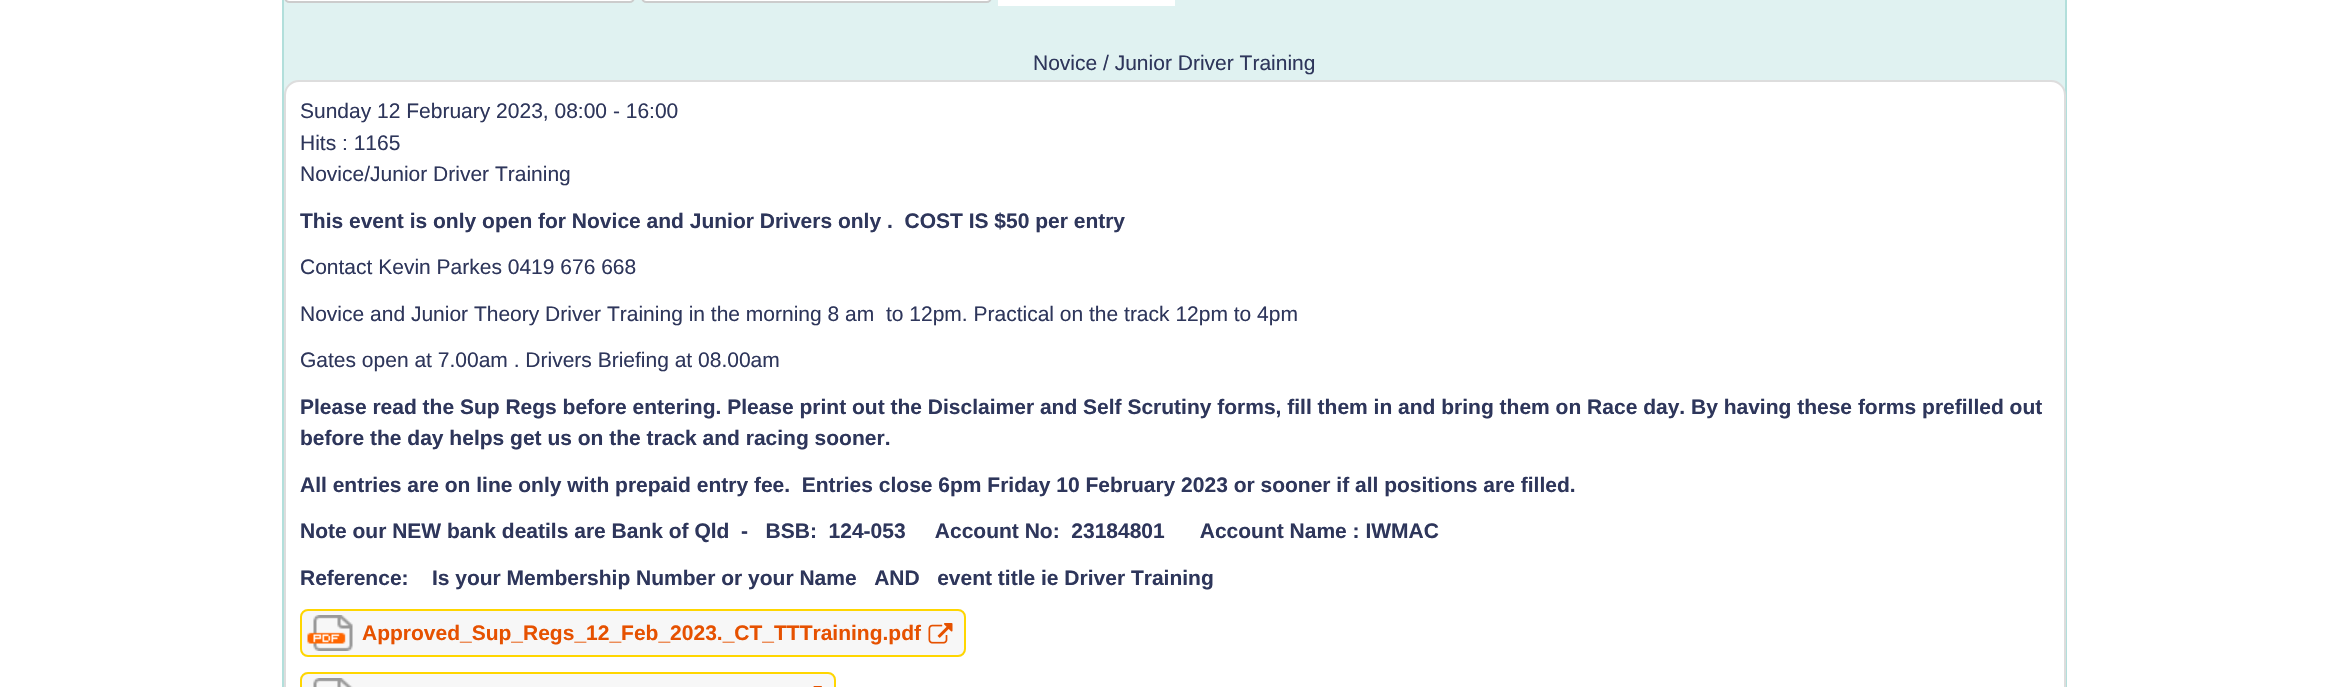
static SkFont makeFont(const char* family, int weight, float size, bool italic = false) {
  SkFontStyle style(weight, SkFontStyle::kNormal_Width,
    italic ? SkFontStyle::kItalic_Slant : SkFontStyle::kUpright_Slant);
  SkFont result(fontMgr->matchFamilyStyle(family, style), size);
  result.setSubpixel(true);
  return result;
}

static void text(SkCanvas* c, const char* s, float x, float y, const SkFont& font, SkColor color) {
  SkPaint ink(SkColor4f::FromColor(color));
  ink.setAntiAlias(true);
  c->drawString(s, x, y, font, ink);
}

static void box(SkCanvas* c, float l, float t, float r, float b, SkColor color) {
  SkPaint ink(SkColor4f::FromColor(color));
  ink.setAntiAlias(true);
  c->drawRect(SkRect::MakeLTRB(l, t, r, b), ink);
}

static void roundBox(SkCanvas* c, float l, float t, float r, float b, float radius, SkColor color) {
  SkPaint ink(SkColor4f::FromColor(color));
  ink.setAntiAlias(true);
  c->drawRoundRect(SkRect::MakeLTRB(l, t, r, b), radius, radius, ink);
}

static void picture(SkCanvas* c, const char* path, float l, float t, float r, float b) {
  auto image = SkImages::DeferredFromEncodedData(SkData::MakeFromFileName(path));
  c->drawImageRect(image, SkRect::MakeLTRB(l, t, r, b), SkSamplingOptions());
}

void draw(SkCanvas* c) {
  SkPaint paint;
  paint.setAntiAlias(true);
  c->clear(0xffffffff);
  box(c, 284, 0, 2065, 95, 0xffe0f2f1);
  paint.setStyle(SkPaint::kStroke_Style);
  paint.setStrokeWidth(2);
  paint.setColor(0xffb2dfdb);
  c->drawRect(SkRect::MakeLTRB(283, -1, 2066, 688), paint);
  paint.setStyle(SkPaint::kFill_Style);
  paint.setColor(0xffffffff);
  c->drawRoundRect(SkRect::MakeLTRB(285, -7, 634, 2), 5, 5, paint);
  paint.setStyle(SkPaint::kStroke_Style);
  paint.setColor(0xffcccccc);
  c->drawRoundRect(SkRect::MakeLTRB(285, -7, 634, 2), 5, 5, paint);
  paint.setStyle(SkPaint::kFill_Style);
  paint.setColor(0xffffffff);
  c->drawRoundRect(SkRect::MakeLTRB(642, -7, 991, 2), 5, 5, paint);
  paint.setStyle(SkPaint::kStroke_Style);
  paint.setColor(0xffcccccc);
  c->drawRoundRect(SkRect::MakeLTRB(642, -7, 991, 2), 5, 5, paint);
  box(c, 998, 0, 1175, 6, 0xffffffff);
  SkFont face1 = makeFont("Liberation Sans", 400, 21);
  text(c, "Novice / Junior Driver Training", 1033, 70, face1, 0xff2e365b);
  paint.setStyle(SkPaint::kFill_Style);
  paint.setColor(0xffffffff);
  c->drawRoundRect(SkRect::MakeLTRB(285, 81, 2065, 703), 14, 14, paint);
  paint.setStyle(SkPaint::kStroke_Style);
  paint.setColor(0xffdddddd);
  c->drawRoundRect(SkRect::MakeLTRB(285, 81, 2065, 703), 14, 14, paint);
  text(c, "Sunday 12 February 2023, 08:00 - 16:00", 300, 118, face1, 0xff2e365b);
  text(c, "Hits : 1165", 300, 150, face1, 0xff2e365b);
  text(c, "Novice/Junior Driver Training", 300, 181, face1, 0xff2e365b);
  SkFont face2 = makeFont("Liberation Sans", 700, 21);
  text(c, "This event is only open for Novice and Junior Drivers only .  COST IS $50 per entry", 300, 228, face2, 0xff2e365b);
  text(c, "Contact Kevin Parkes 0419 676 668", 300, 274, face1, 0xff2e365b);
  text(c, "Novice and Junior Theory Driver Training in the morning 8 am  to 12pm. Practical on the track 12pm to 4pm", 300, 321, face1, 0xff2e365b);
  text(c, "Gates open at 7.00am . Drivers Briefing at 08.00am", 300, 367, face1, 0xff2e365b);
  text(c, "Please read the Sup Regs before entering. Please print out the Disclaimer and Self Scrutiny forms, fill them in and bring them on Race day. By having these forms prefilled out", 300, 414, face2, 0xff2e365b);
  text(c, "before the day helps get us on the track and racing sooner.", 300, 445, face2, 0xff2e365b);
  text(c, "All entries are on line only with prepaid entry fee.  Entries close 6pm Friday 10 February 2023 or sooner if all positions are filled.", 300, 492, face2, 0xff2e365b);
  text(c, "Note our NEW bank deatils are Bank of Qld  -   BSB:  124-053     Account No:  23184801      Account Name : IWMAC", 300, 538, face2, 0xff2e365b);
  text(c, "Reference:    Is your Membership Number or your Name   AND   event title ie Driver Training", 300, 585, face2, 0xff2e365b);
  roundBox(c, 300, 609, 966, 657, 8, 0xfff7f7f7);
  picture(c, "img_01.png", 307, 615, 353, 651);
  paint.setColor(0xffffd600);
  c->drawRoundRect(SkRect::MakeLTRB(301, 610, 965, 656), 7, 7, paint);
  text(c, "Approved_Sup_Regs_12_Feb_2023._CT_TTTraining.pdf", 362, 640, face2, 0xffe65100);
  picture(c, "img_02.png", 928, 623, 953, 644);
  roundBox(c, 300, 672, 836, 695, 8, 0xfff7f7f7);
  picture(c, "img_03.png", 313, 678, 353, 687);
  c->drawRoundRect(SkRect::MakeLTRB(301, 673, 835, 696), 7, 7, paint);
  picture(c, "img_04.png", 813, 686, 822, 687);
}
